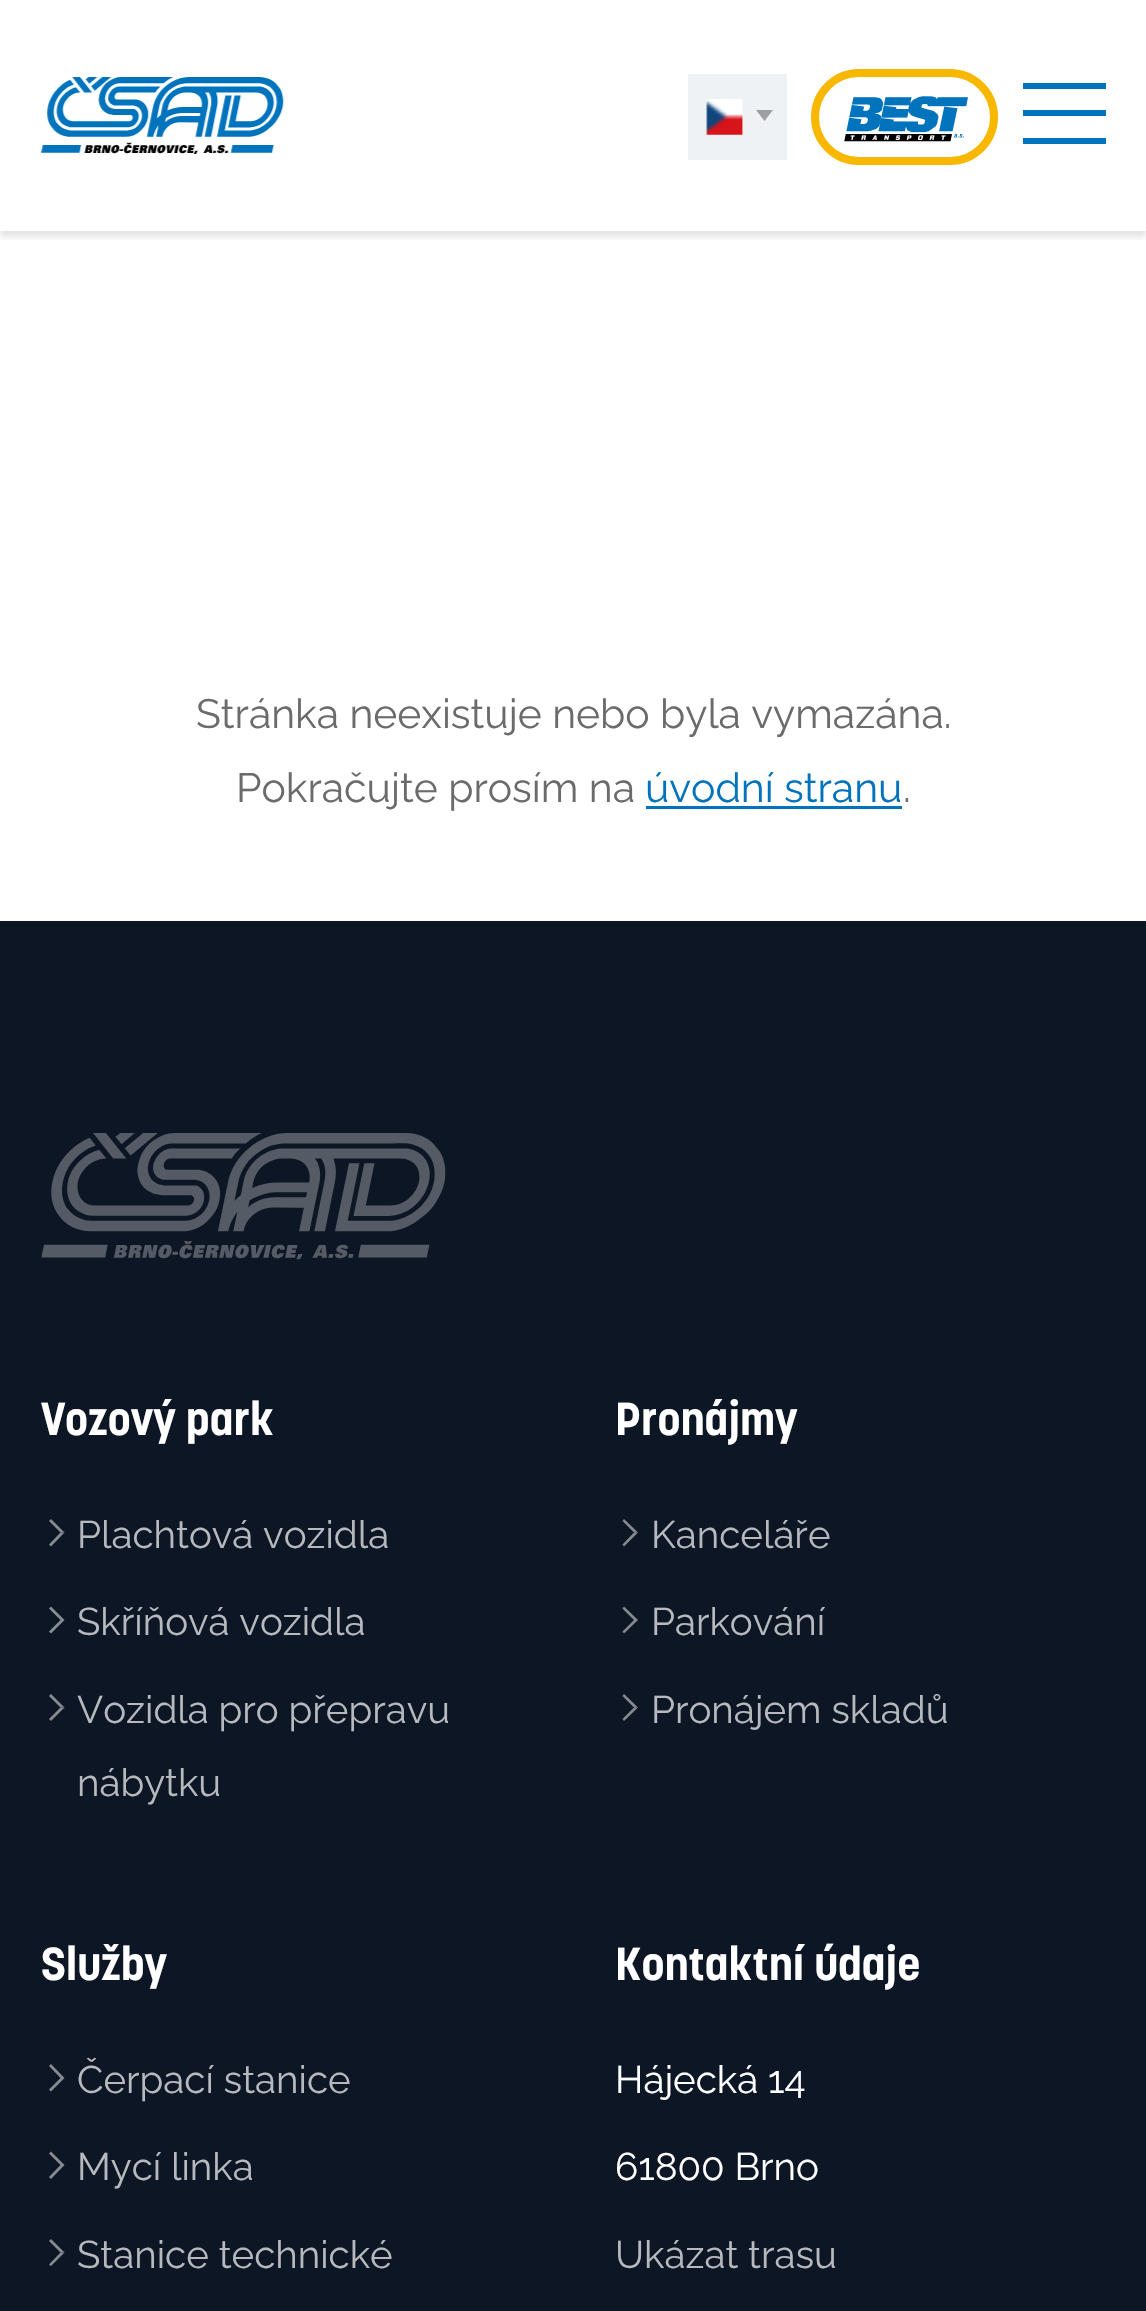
static SkFont makeFont(const char* family, int weight, float size, bool italic = false) {
  SkFontStyle style(weight, SkFontStyle::kNormal_Width,
    italic ? SkFontStyle::kItalic_Slant : SkFontStyle::kUpright_Slant);
  SkFont result(fontMgr->matchFamilyStyle(family, style), size);
  result.setSubpixel(true);
  return result;
}

static void text(SkCanvas* c, const char* s, float x, float y, const SkFont& font, SkColor color) {
  SkPaint ink(SkColor4f::FromColor(color));
  ink.setAntiAlias(true);
  c->drawString(s, x, y, font, ink);
}

static void box(SkCanvas* c, float l, float t, float r, float b, SkColor color) {
  SkPaint ink(SkColor4f::FromColor(color));
  ink.setAntiAlias(true);
  c->drawRect(SkRect::MakeLTRB(l, t, r, b), ink);
}

static void picture(SkCanvas* c, const char* path, float l, float t, float r, float b) {
  auto image = SkImages::DeferredFromEncodedData(SkData::MakeFromFileName(path));
  c->drawImageRect(image, SkRect::MakeLTRB(l, t, r, b), SkSamplingOptions());
}

void draw(SkCanvas* c) {
  SkPaint paint;
  paint.setAntiAlias(true);
  c->clear(0xffffffff);
  c->save();
  c->clipRect(SkRect::MakeLTRB(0, 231, 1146, 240));
  paint.setColor(0x1a000000);
  paint.setMaskFilter(SkMaskFilter::MakeBlur(kNormal_SkBlurStyle, 3));
  c->drawRect(SkRect::MakeLTRB(0, 6, 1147, 237), paint);
  paint.setMaskFilter(nullptr);
  c->restore();
  picture(c, "img_01.png", 41, 77, 284, 154);
  box(c, 688, 74, 787, 160, 0xffeff2f4);
  picture(c, "img_02.png", 706, 99, 743, 135);
  paint.setColor(0xff9d9fa0);
  c->drawPath(SkPathBuilder().moveTo(756, 110).lineTo(773, 110).lineTo(764.5f, 121).close().detach(), paint);
  paint.setStyle(SkPaint::kStroke_Style);
  paint.setStrokeWidth(8);
  paint.setColor(0xfff9b800);
  c->drawRoundRect(SkRect::MakeLTRB(815, 73, 994, 161), 44, 44, paint);
  picture(c, "img_03.png", 844, 96, 968, 142);
  box(c, 1023, 83, 1106, 89, 0xff0073bd);
  box(c, 1023, 110, 1106, 116, 0xff0073bd);
  box(c, 1023, 138, 1106, 144, 0xff0073bd);
  SkFont face1 = makeFont("Raleway", 400, 40.9f);
  text(c, "Stránka neexistuje nebo byla vymazána.", 196, 728, face1, 0xff6b6b6b);
  text(c, "Pokračujte prosím na", 236, 802, face1, 0xff6b6b6b);
  text(c, "úvodní stranu", 645, 802, face1, 0xff0073bd);
  box(c, 646, 806, 902, 809, 0xff0073bd);
  text(c, ".", 903, 802, face1, 0xff6b6b6b);
  box(c, 0, 921, 1146, 2311, 0xff0c1624);
  picture(c, "img_04.png", 41, 1133, 446, 1260);
  SkFont face2 = makeFont("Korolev", 700, 45.75f);
  text(c, "Vozový park", 41, 1435, face2, 0xffffffff);
  paint.setStyle(SkPaint::kFill_Style);
  paint.setColor(0xff868b92);
  c->drawPath(SkPathBuilder().moveTo(51, 1519).lineTo(64.5f, 1532.5f).lineTo(60.5f, 1532.5f).lineTo(49, 1521).close().detach(), paint);
  c->drawPath(SkPathBuilder().moveTo(64.5f, 1532.5f).lineTo(51, 1546.5f).lineTo(49, 1544.5f).lineTo(60.5f, 1532.5f).close().detach(), paint);
  SkFont face3 = makeFont("Raleway", 400, 38.5f);
  text(c, "Plachtová vozidla", 77, 1548, face3, 0xffb6b9bd);
  c->drawPath(SkPathBuilder().moveTo(51, 1606.5f).lineTo(64.5f, 1620).lineTo(60.5f, 1620).lineTo(49, 1608.5f).close().moveTo(64.5f, 1620).lineTo(51, 1633.5f).lineTo(49, 1631.5f).lineTo(60.5f, 1620).close().detach(), paint);
  text(c, "Skříňová vozidla", 77, 1635, face3, 0xffb6b9bd);
  c->drawPath(SkPathBuilder().moveTo(51, 1694).lineTo(64.5f, 1707.5f).lineTo(60.5f, 1707.5f).lineTo(49, 1696).close().detach(), paint);
  c->drawPath(SkPathBuilder().moveTo(64.5f, 1707.5f).lineTo(51, 1721).lineTo(49, 1719).lineTo(60.5f, 1707.5f).close().detach(), paint);
  text(c, "Vozidla pro přepravu", 77, 1723, face3, 0xffb6b9bd);
  text(c, "nábytku", 77, 1796, face3, 0xffb6b9bd);
  text(c, "Pronájmy", 615, 1435, face2, 0xffffffff);
  c->drawPath(SkPathBuilder().moveTo(624, 1519).lineTo(638, 1532.5f).lineTo(634, 1532.5f).lineTo(622.5f, 1521).close().detach(), paint);
  c->drawPath(SkPathBuilder().moveTo(638, 1532.5f).lineTo(624, 1546.5f).lineTo(622.5f, 1544.5f).lineTo(634, 1532.5f).close().detach(), paint);
  text(c, "Kanceláře", 651, 1548, face3, 0xffb6b9bd);
  c->drawPath(SkPathBuilder().moveTo(624, 1606.5f).lineTo(638, 1620).lineTo(634, 1620).lineTo(622.5f, 1608.5f).close().moveTo(638, 1620).lineTo(624, 1633.5f).lineTo(622.5f, 1631.5f).lineTo(634, 1620).close().detach(), paint);
  text(c, "Parkování", 651, 1635, face3, 0xffb6b9bd);
  c->drawPath(SkPathBuilder().moveTo(624, 1694).lineTo(638, 1707.5f).lineTo(634, 1707.5f).lineTo(622.5f, 1696).close().detach(), paint);
  c->drawPath(SkPathBuilder().moveTo(638, 1707.5f).lineTo(624, 1721).lineTo(622.5f, 1719).lineTo(634, 1707.5f).close().detach(), paint);
  text(c, "Pronájem skladů", 651, 1723, face3, 0xffb6b9bd);
  text(c, "Služby", 41, 1980, face2, 0xffffffff);
  c->drawPath(SkPathBuilder().moveTo(51, 2064).lineTo(64.5f, 2078).lineTo(60.5f, 2078).lineTo(49, 2066).close().moveTo(64.5f, 2078).lineTo(51, 2091.5f).lineTo(49, 2089.5f).lineTo(60.5f, 2078).close().detach(), paint);
  text(c, "Čerpací stanice", 77, 2093, face3, 0xffb6b9bd);
  c->drawPath(SkPathBuilder().moveTo(51, 2151.5f).lineTo(64.5f, 2165).lineTo(60.5f, 2165).lineTo(49, 2153.5f).close().moveTo(64.5f, 2165).lineTo(51, 2179).lineTo(49, 2177).lineTo(60.5f, 2165).close().detach(), paint);
  text(c, "Mycí linka", 77, 2180, face3, 0xffb6b9bd);
  c->drawPath(SkPathBuilder().moveTo(51, 2239).lineTo(64.5f, 2252.5f).lineTo(60.5f, 2252.5f).lineTo(49, 2241).close().detach(), paint);
  c->drawPath(SkPathBuilder().moveTo(64.5f, 2252.5f).lineTo(51, 2266).lineTo(49, 2264.5f).lineTo(60.5f, 2252.5f).close().detach(), paint);
  text(c, "Stanice technické", 77, 2268, face3, 0xffb6b9bd);
  text(c, "Kontaktní údaje", 615, 1980, face2, 0xffffffff);
  text(c, "Hájecká 14", 615, 2093, face3, 0xffffffff);
  text(c, "61800 Brno", 615, 2180, face3, 0xffffffff);
  text(c, "Ukázat trasu", 615, 2268, face3, 0xffb6b9bd);
}
